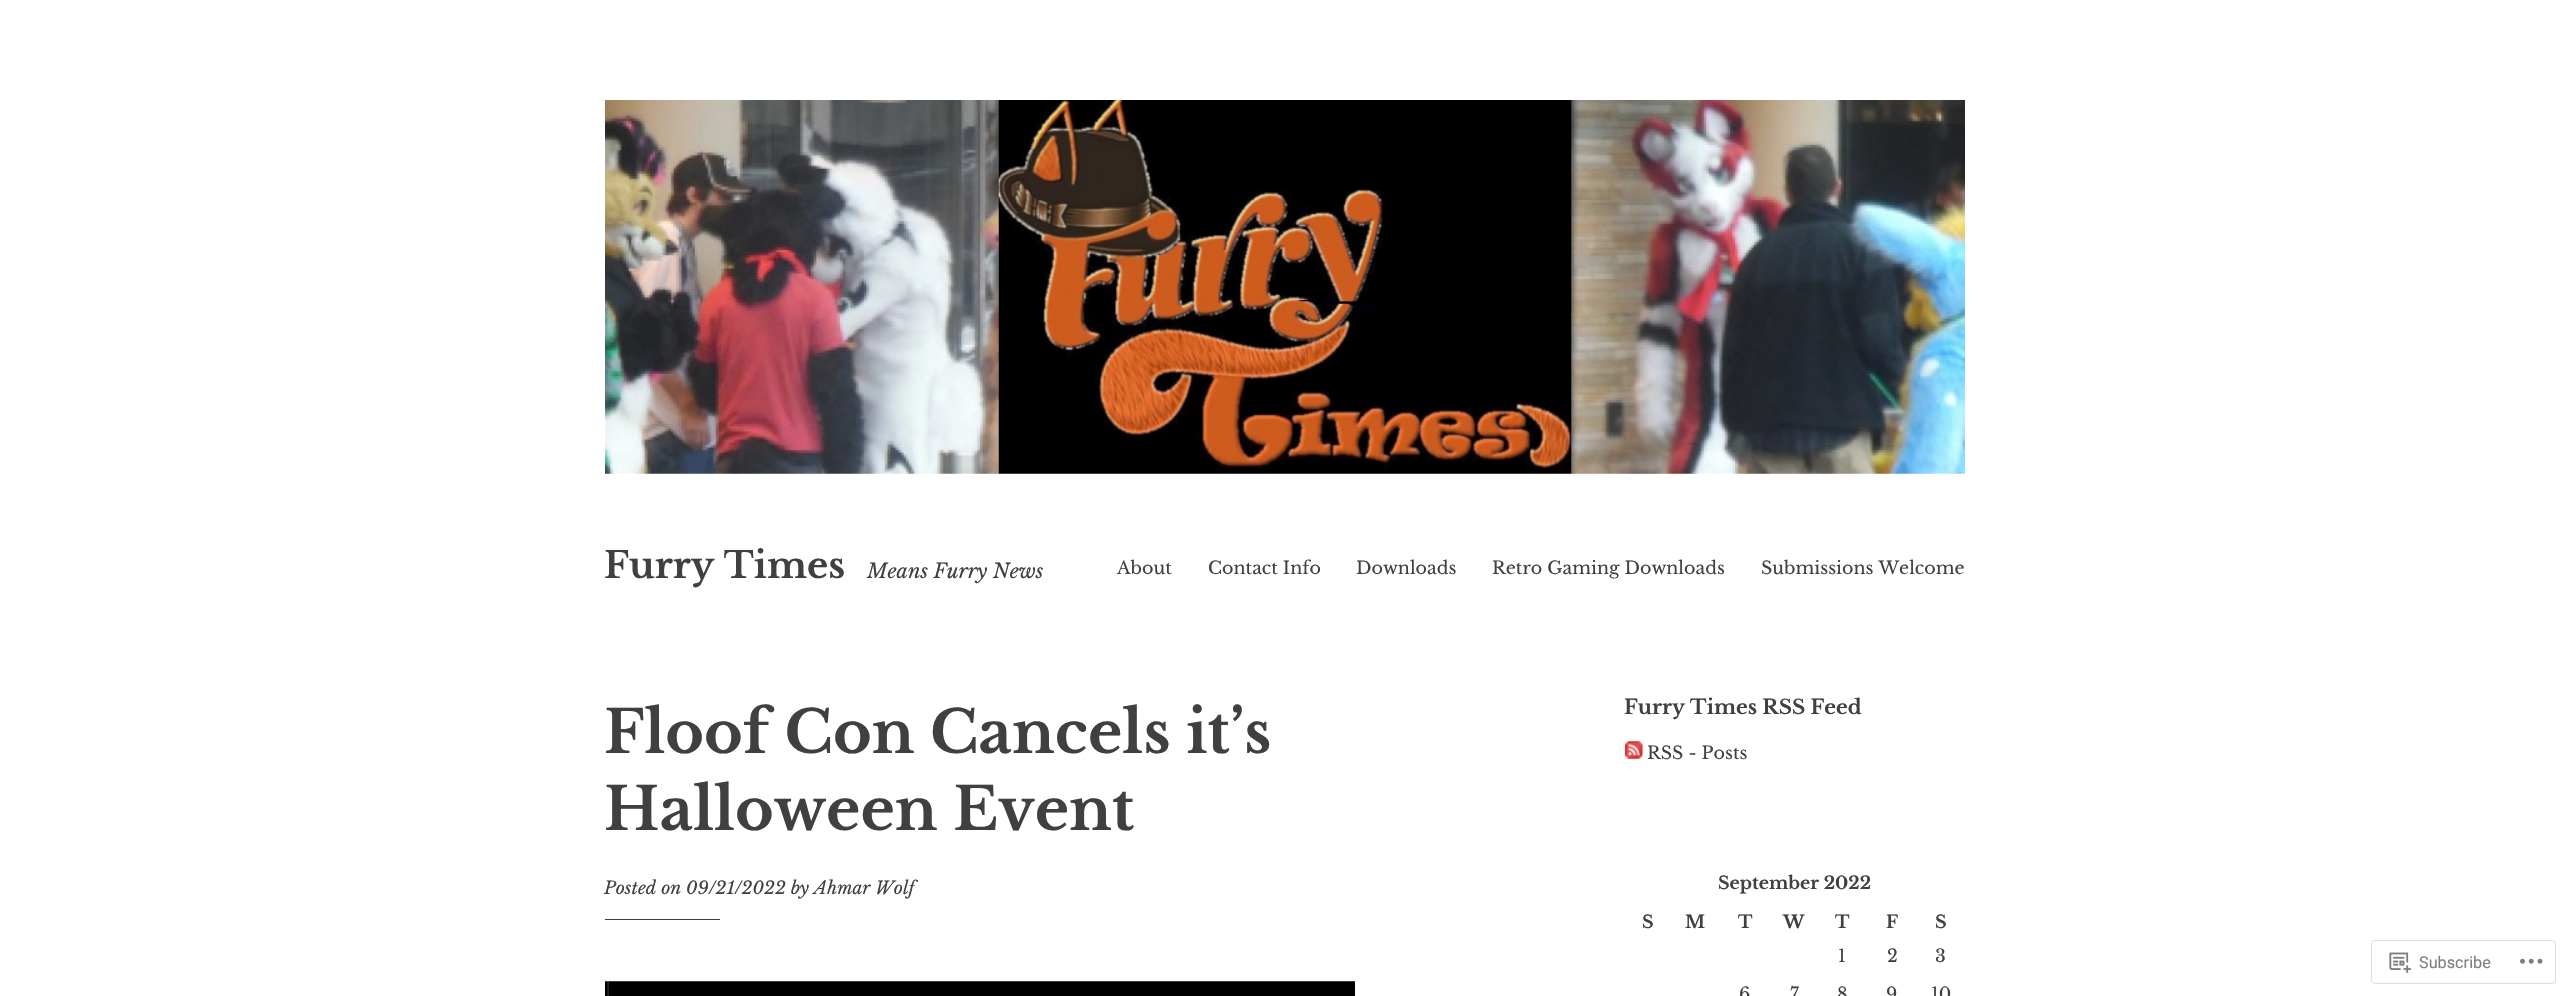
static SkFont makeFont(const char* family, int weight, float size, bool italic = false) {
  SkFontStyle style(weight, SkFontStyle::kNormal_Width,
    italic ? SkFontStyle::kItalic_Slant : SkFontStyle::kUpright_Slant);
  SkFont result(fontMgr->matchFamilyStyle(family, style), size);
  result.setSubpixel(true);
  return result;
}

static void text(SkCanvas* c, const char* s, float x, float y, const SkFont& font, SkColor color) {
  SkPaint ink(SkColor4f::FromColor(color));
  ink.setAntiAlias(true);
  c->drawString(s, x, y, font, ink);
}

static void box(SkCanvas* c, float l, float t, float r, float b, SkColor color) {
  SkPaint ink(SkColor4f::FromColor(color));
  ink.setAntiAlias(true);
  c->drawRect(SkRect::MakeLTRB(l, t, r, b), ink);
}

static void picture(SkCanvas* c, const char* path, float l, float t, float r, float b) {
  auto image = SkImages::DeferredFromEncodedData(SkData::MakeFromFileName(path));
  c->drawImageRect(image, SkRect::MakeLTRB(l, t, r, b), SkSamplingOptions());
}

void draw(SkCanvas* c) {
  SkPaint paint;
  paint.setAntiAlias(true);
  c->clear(0xffffffff);
  picture(c, "img_01.png", 605, 100, 1965, 474);
  SkFont face1 = makeFont("Libre Baskerville", 700, 36.25f);
  text(c, "Furry Times", 604, 578, face1, 0xff404040);
  SkFont face2 = makeFont("Libre Baskerville", 400, 20, true);
  text(c, "Means Furry News", 867, 578, face2, 0xff404040);
  SkFont face3 = makeFont("Libre Baskerville", 400, 17.5f);
  text(c, "About", 1117, 574, face3, 0xff404040);
  text(c, "Contact Info", 1208, 574, face3, 0xff404040);
  text(c, "Downloads", 1356, 574, face3, 0xff404040);
  text(c, "Retro Gaming Downloads", 1492, 574, face3, 0xff404040);
  text(c, "Submissions Welcome", 1761, 574, face3, 0xff404040);
  SkFont face4 = makeFont("Libre Baskerville", 700, 58.75f);
  text(c, "Floof Con Cancels it’s", 604, 753, face4, 0xff404040);
  text(c, "Halloween Event", 604, 830, face4, 0xff404040);
  SkFont face5 = makeFont("Libre Baskerville", 400, 17.5f, true);
  text(c, "Posted on 09/21/2022 by Ahmar Wolf", 604, 894, face5, 0xff404040);
  box(c, 605, 919, 720, 920, 0xff404040);
  picture(c, "img_02.png", 605, 981, 1355, 996);
  SkFont face6 = makeFont("Libre Baskerville", 700, 20);
  text(c, "Furry Times RSS Feed", 1624, 714, face6, 0xff404040);
  picture(c, "img_03.png", 1625, 741, 1643, 759);
  text(c, "RSS - Posts", 1647, 759, face3, 0xff404040);
  SkFont face7 = makeFont("Libre Baskerville", 700, 17.5f);
  text(c, "September 2022", 1718, 889, face7, 0xff404040);
  text(c, "S", 1642, 928, face7, 0xff404040);
  text(c, "M", 1685, 928, face7, 0xff404040);
  text(c, "T", 1738, 928, face7, 0xff404040);
  text(c, "W", 1783, 928, face7, 0xff404040);
  text(c, "T", 1835, 928, face7, 0xff404040);
  text(c, "F", 1886, 928, face7, 0xff404040);
  text(c, "S", 1935, 928, face7, 0xff404040);
  text(c, "1", 1838, 962, face3, 0xff404040);
  text(c, "2", 1887, 962, face3, 0xff404040);
  text(c, "3", 1935, 962, face3, 0xff404040);
  text(c, "6", 1739, 1000, face3, 0xff404040);
  text(c, "7", 1790, 1000, face3, 0xff404040);
  text(c, "8", 1837, 1000, face3, 0xff404040);
  text(c, "9", 1886, 1000, face3, 0xff404040);
  text(c, "10", 1931, 1000, face3, 0xff404040);
  paint.setStyle(SkPaint::kStroke_Style);
  paint.setStrokeWidth(1);
  paint.setColor(0xffdddddf);
  c->drawRoundRect(SkRect::MakeLTRB(2371.5f, 940.5f, 2555.5f, 983.5f), 3.5f, 3.5f, paint);
  picture(c, "img_04.png", 2389, 952, 2411, 973);
  SkFont face8 = makeFont("Roboto", 400, 16.25f);
  text(c, "Subscribe", 2419, 968, face8, 0xff7b7f85);
  picture(c, "img_05.png", 2520, 958, 2543, 964);
}
